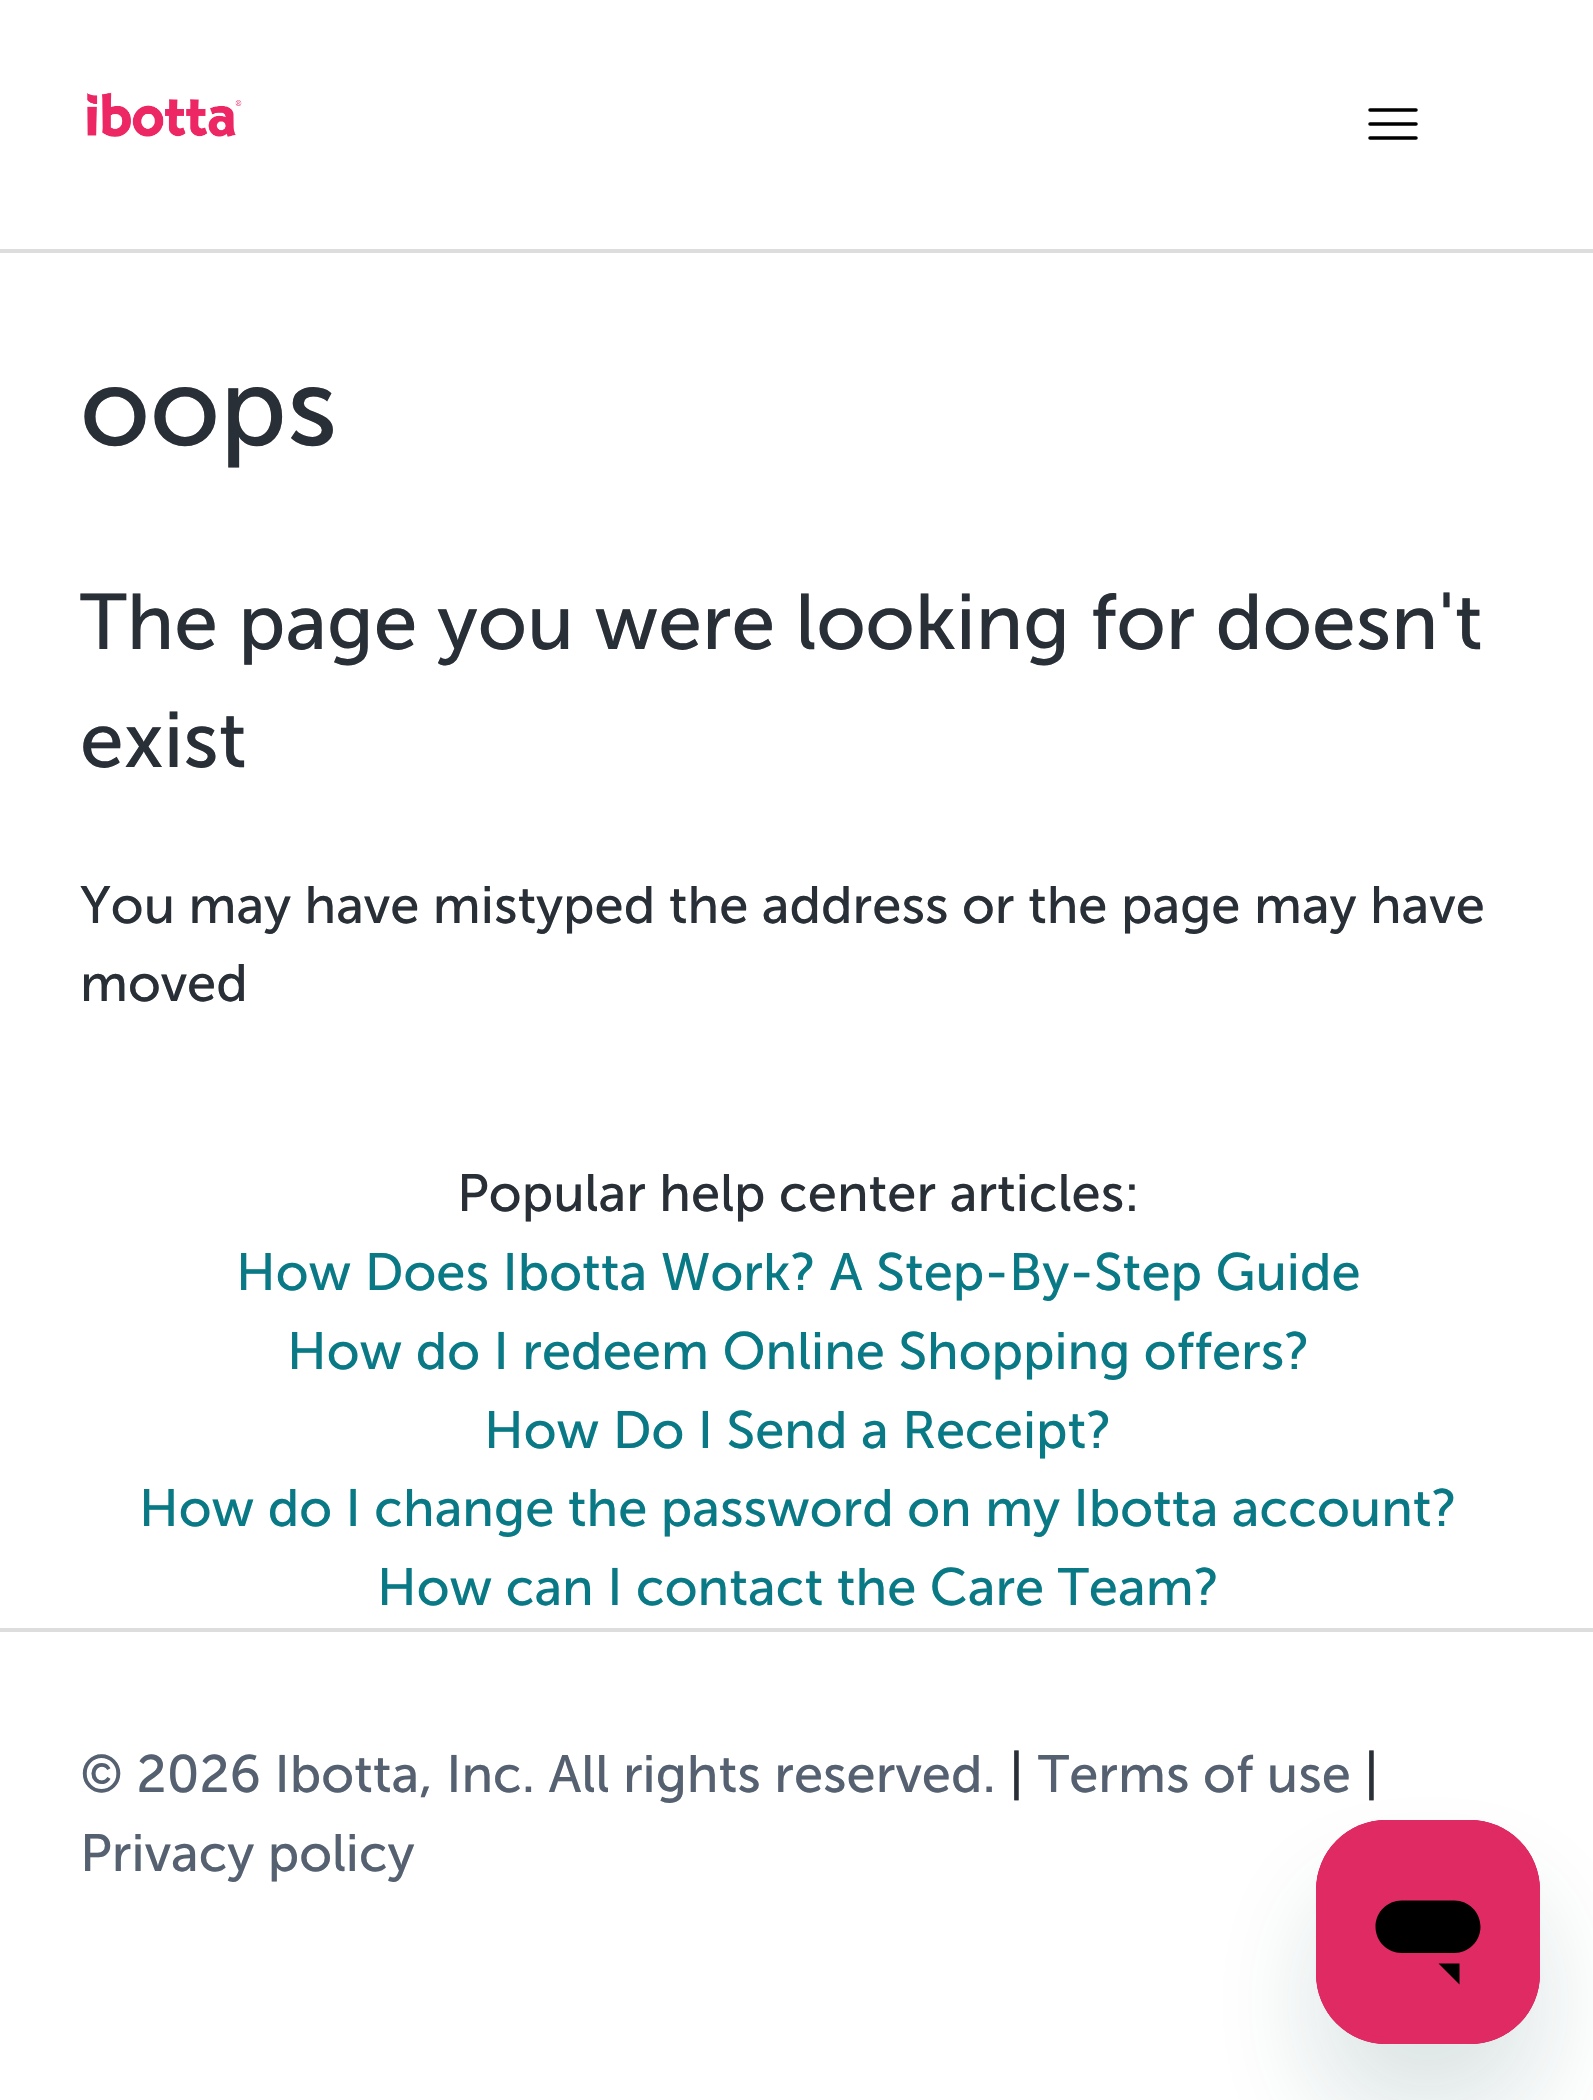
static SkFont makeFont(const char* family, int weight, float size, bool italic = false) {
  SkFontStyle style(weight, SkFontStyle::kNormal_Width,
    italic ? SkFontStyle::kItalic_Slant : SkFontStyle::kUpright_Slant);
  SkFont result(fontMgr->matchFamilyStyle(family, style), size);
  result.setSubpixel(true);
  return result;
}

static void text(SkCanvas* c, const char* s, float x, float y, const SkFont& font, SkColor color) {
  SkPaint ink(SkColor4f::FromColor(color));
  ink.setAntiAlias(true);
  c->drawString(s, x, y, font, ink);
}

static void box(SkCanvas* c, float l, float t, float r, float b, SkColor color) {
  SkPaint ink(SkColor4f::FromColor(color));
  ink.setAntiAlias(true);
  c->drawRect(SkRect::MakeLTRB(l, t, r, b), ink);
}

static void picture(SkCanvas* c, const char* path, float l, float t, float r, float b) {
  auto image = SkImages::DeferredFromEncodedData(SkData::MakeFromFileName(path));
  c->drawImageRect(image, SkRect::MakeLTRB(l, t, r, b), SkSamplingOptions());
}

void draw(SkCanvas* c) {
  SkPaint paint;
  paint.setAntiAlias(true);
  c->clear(0xffffffff);
  picture(c, "img_01.png", 87, 92, 242, 137);
  paint.setStyle(SkPaint::kStroke_Style);
  paint.setStrokeWidth(3.5f);
  paint.setStrokeCap(SkPaint::kRound_Cap);
  paint.setColor(0xff000000);
  c->drawPath(SkPathBuilder().moveTo(1370, 110).lineTo(1416, 110).moveTo(1370, 124).lineTo(1416, 124).moveTo(1370, 138).lineTo(1416, 138).detach(), paint);
  box(c, 0, 249, 1593, 253, 0xffdddddd);
  SkFont face1 = makeFont("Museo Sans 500", 400, 112);
  text(c, "oops", 80, 445, face1, 0xff292f36);
  SkFont face2 = makeFont("Museo Sans 500", 400, 78.75f);
  text(c, "The page you were looking for doesn't", 80, 649, face2, 0xff292f36);
  text(c, "exist", 80, 767, face2, 0xff292f36);
  SkFont face3 = makeFont("Museo Sans 500", 400, 52.5f);
  text(c, "You may have mistyped the address or the page may have", 80, 923, face3, 0xff292f36);
  text(c, "moved", 80, 1001, face3, 0xff292f36);
  text(c, "Popular help center articles:", 457, 1211, face3, 0xff292f36);
  text(c, "How Does Ibotta Work? A Step-By-Step Guide", 236, 1290, face3, 0xff0a7986);
  text(c, "How do I redeem Online Shopping offers?", 287, 1369, face3, 0xff0a7986);
  text(c, "How Do I Send a Receipt?", 484, 1448, face3, 0xff0a7986);
  text(c, "How do I change the password on my Ibotta account?", 139, 1526, face3, 0xff0a7986);
  text(c, "How can I contact the Care Team?", 377, 1605, face3, 0xff0a7986);
  box(c, 0, 1628, 1593, 1632, 0xffdddddd);
  text(c, "© 2026 Ibotta, Inc. All rights reserved.", 80, 1792, face3, 0xff556170);
  text(c, "|", 1009, 1792, face3, 0xff292f36);
  text(c, "Terms of use", 1038, 1792, face3, 0xff556170);
  text(c, "|", 1364, 1792, face3, 0xff292f36);
  text(c, "Privacy policy", 80, 1871, face3, 0xff556170);
  paint.setStyle(SkPaint::kFill_Style);
  paint.setColor(0x2617494d);
  paint.setMaskFilter(SkMaskFilter::MakeBlur(kNormal_SkBlurStyle, 52.5f));
  c->drawRoundRect(SkRect::MakeLTRB(1316, 1890, 1540, 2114), 70, 70, paint);
  paint.setMaskFilter(nullptr);
  picture(c, "img_02.png", 1316, 1820, 1540, 2044);
}
